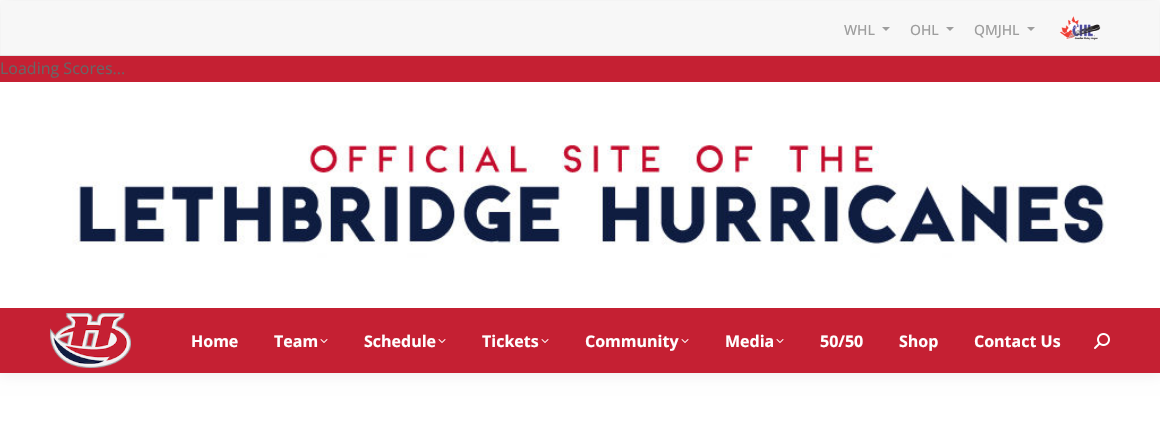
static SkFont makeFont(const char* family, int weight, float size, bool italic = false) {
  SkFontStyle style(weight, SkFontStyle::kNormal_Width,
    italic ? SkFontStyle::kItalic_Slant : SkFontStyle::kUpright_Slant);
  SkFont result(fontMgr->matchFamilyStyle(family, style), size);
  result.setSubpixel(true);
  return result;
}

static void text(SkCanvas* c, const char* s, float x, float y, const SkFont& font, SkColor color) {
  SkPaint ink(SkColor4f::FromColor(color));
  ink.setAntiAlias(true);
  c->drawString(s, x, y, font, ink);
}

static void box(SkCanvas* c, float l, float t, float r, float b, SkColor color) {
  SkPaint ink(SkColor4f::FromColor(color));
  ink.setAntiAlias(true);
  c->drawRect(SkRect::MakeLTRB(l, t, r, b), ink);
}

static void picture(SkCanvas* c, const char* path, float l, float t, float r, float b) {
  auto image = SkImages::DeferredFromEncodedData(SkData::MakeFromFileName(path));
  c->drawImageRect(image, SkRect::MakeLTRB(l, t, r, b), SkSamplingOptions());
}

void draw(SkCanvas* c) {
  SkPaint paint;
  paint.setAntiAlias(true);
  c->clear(0xffffffff);
  paint.setColor(0x12000000);
  paint.setMaskFilter(SkMaskFilter::MakeBlur(kNormal_SkBlurStyle, 7.5f));
  c->drawRect(SkRect::MakeLTRB(-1, -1, 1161, 374), paint);
  paint.setMaskFilter(nullptr);
  box(c, 0, 56, 1160, 373, 0xffc52033);
  box(c, 1, 1, 1159, 55, 0xfff7f7f7);
  SkFont face1 = makeFont("Open Sans", 500, 14);
  text(c, "WHL", 844, 35, face1, 0xff9e9e9e);
  paint.setColor(0xff9e9e9e);
  c->drawPath(SkPathBuilder().moveTo(882, 27).lineTo(890, 27).lineTo(886, 31).close().detach(), paint);
  text(c, "OHL", 910, 35, face1, 0xff9e9e9e);
  c->drawPath(SkPathBuilder().moveTo(946, 27).lineTo(954, 27).lineTo(950, 31).close().detach(), paint);
  text(c, "QMJHL", 974, 35, face1, 0xff9e9e9e);
  c->drawPath(SkPathBuilder().moveTo(1027, 27).lineTo(1035, 27).lineTo(1031, 31).close().detach(), paint);
  picture(c, "img_01.png", 1059, 16, 1101, 41);
  box(c, 0, 55, 1160, 56, 0xffe1e1e1);
  SkFont face2 = makeFont("Open Sans", 400, 16);
  text(c, "Loading Scores...", 0, 74, face2, 0xff666666);
  picture(c, "img_02.png", 0, 82, 1160, 308);
  picture(c, "img_03.png", 50, 313, 131, 368);
  SkFont face3 = makeFont("Open Sans", 700, 16);
  text(c, "Home", 191, 347, face3, 0xffffffff);
  text(c, "Team", 274, 347, face3, 0xffffffff);
  picture(c, "img_04.png", 320, 339, 328, 343);
  text(c, "Schedule", 364, 347, face3, 0xffffffff);
  picture(c, "img_04.png", 438, 339, 446, 343);
  text(c, "Tickets", 482, 347, face3, 0xffffffff);
  picture(c, "img_04.png", 541, 339, 549, 343);
  text(c, "Community", 585, 347, face3, 0xffffffff);
  picture(c, "img_04.png", 681, 339, 689, 343);
  text(c, "Media", 725, 347, face3, 0xffffffff);
  picture(c, "img_04.png", 776, 339, 784, 343);
  text(c, "50/50", 820, 347, face3, 0xffffffff);
  text(c, "Shop", 899, 347, face3, 0xffffffff);
  text(c, "Contact Us", 974, 347, face3, 0xffffffff);
  picture(c, "img_05.png", 1094, 333, 1110, 349);
}
